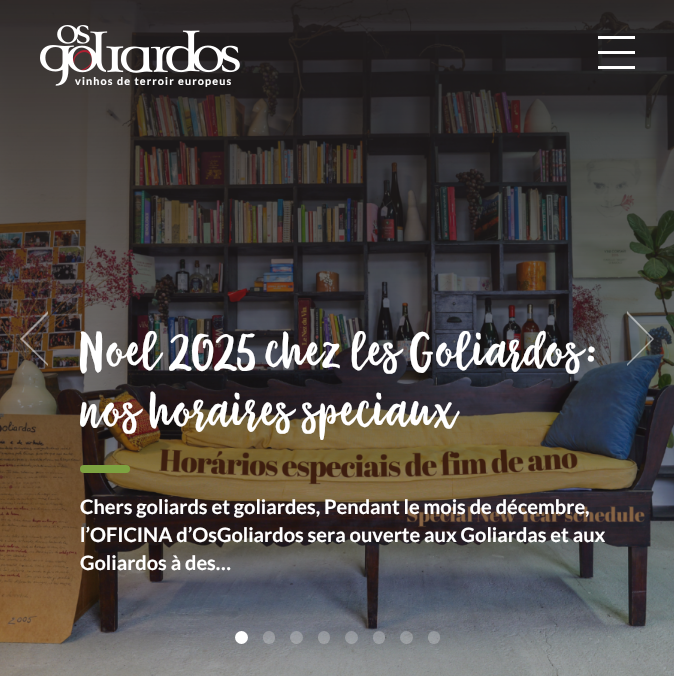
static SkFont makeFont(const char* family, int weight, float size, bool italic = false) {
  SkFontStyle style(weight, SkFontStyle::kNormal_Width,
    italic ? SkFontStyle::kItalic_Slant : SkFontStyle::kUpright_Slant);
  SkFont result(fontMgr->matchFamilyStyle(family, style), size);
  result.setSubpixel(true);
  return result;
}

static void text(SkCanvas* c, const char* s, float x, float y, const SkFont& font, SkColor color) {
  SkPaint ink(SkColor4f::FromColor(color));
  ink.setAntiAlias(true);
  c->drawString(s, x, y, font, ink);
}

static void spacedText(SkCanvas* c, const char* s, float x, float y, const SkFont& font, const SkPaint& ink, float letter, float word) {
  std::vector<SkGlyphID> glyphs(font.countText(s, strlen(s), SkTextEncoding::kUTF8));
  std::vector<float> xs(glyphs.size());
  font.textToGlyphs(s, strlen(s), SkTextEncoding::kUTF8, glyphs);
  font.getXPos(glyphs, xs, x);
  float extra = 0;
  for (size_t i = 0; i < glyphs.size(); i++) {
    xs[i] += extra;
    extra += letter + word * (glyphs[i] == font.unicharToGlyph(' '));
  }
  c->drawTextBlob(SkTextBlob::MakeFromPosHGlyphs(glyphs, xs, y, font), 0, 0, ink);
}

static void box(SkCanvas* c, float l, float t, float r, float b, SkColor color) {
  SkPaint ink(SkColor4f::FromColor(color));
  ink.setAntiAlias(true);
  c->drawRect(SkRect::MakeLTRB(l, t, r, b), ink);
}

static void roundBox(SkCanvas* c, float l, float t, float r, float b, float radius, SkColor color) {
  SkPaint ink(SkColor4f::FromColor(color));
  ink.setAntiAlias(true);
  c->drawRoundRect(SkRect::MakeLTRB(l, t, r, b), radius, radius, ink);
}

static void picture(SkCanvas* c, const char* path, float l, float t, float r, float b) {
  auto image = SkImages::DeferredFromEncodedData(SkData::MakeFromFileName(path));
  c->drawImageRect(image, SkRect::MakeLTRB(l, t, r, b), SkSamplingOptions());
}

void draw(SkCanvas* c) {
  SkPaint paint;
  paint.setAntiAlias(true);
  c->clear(0xffffffff);
  picture(c, "img_02.png", 0, 0, 674, 676);
  box(c, 598, 36, 635, 39, 0xffffffff);
  box(c, 598, 51, 635, 54, 0xffffffff);
  box(c, 598, 66, 635, 69, 0xffffffff);
  picture(c, "img_01.png", 40, 25, 240, 86);
  SkFont face1 = makeFont("Lato", 700, 10.8f);
  paint.setColor(0xffffffff);
  spacedText(c, "vinhos de terroir europeus", 75, 85, face1, paint, 1.15f, 0);
  paint.setColor(0x80ffffff);
  c->drawPath(SkPathBuilder().moveTo(20, 339).lineTo(48, 366).lineTo(48, 364).lineTo(23, 339).lineTo(48, 314).lineTo(48, 311).close().detach(), paint);
  SkFont face2 = makeFont("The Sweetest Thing", 100, 40);
  text(c, "Noel 2025 chez les Goliardos:", 80, 367, face2, 0xffffffff);
  text(c, "nos horaires speciaux", 80, 427, face2, 0xffffffff);
  roundBox(c, 80, 465, 130, 473, 4, 0xff7da240);
  SkFont face3 = makeFont("Lato", 700, 20);
  text(c, "Chers goliards et goliardes, Pendant le mois de décembre,", 80, 514, face3, 0xffffffff);
  text(c, "l’OFICINA d’OsGoliardos sera ouverte aux Goliardas et aux", 80, 542, face3, 0xffffffff);
  text(c, "Goliardos à des…", 80, 570, face3, 0xffffffff);
  c->drawPath(SkPathBuilder().moveTo(654, 339).lineTo(627, 311).lineTo(627, 314).lineTo(652, 339).lineTo(627, 364).lineTo(627, 366).close().detach(), paint);
  paint.setColor(0xffffffff);
  c->drawCircle(241.5f, 637.5f, 6.5f, paint);
  roundBox(c, 263, 631, 275, 644, 6, 0x40ffffff);
  paint.setColor(0x40ffffff);
  c->drawCircle(296.5f, 637.5f, 6.5f, paint);
  roundBox(c, 318, 631, 330, 644, 6, 0x40ffffff);
  c->drawCircle(351.5f, 637.5f, 6.5f, paint);
  roundBox(c, 373, 631, 385, 644, 6, 0x40ffffff);
  c->drawCircle(406.5f, 637.5f, 6.5f, paint);
  roundBox(c, 428, 631, 440, 644, 6, 0x40ffffff);
}
